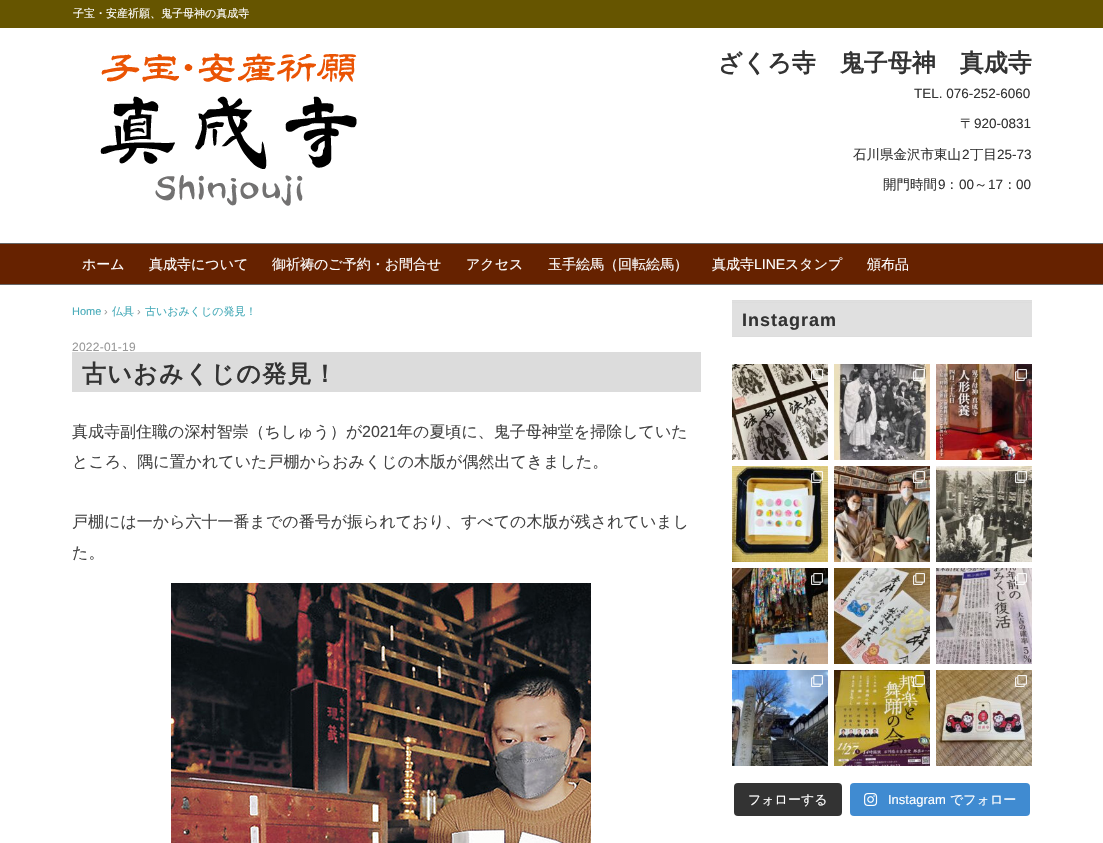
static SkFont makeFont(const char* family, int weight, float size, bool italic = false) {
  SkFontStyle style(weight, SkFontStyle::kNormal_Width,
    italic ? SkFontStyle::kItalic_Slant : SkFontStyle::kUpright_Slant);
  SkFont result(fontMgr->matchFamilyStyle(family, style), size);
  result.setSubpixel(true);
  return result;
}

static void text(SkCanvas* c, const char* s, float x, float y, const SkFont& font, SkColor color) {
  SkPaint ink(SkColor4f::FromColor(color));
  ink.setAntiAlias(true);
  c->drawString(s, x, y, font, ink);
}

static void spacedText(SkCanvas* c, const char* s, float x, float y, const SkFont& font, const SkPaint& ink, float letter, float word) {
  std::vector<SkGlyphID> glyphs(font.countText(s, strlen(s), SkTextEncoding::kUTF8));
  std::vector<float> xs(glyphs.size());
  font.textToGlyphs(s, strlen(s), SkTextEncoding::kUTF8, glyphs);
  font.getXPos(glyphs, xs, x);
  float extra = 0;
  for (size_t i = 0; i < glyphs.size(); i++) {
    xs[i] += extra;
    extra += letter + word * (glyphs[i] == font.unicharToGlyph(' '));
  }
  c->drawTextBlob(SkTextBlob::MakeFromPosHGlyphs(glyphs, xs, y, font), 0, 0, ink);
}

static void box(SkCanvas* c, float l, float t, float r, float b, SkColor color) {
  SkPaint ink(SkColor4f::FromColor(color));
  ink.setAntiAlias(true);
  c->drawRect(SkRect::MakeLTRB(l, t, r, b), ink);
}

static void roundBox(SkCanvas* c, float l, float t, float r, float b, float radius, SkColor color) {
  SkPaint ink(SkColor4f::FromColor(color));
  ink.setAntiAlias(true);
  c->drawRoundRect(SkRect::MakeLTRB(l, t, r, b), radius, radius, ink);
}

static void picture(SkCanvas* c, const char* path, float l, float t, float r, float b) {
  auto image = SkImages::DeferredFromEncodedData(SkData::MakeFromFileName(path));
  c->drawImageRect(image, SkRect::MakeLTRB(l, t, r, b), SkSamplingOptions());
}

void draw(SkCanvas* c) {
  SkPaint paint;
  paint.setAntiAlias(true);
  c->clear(0xffffffff);
  box(c, 0, 0, 1103, 28, 0xff665500);
  SkFont face1 = makeFont("WenQuanYi Zen Hei", 500, 11);
  text(c, "子宝・安産祈願、鬼子母神の真成寺", 73, 17, face1, 0xffffffff);
  picture(c, "img_01.png", 100, 53, 357, 206);
  SkFont face2 = makeFont("WenQuanYi Zen Hei", 700, 24);
  text(c, "ざくろ寺　鬼子母神　真成寺", 718, 71, face2, 0xff333333);
  SkFont face3 = makeFont("Liberation Sans", 400, 13.5f);
  text(c, "TEL. 076-252-6060", 914, 98, face3, 0xff333333);
  SkFont face4 = makeFont("WenQuanYi Zen Hei", 500, 13.5f);
  text(c, "〒", 960, 128, face4, 0xff333333);
  text(c, "920-0831", 974, 128, face3, 0xff333333);
  text(c, "石川県金沢市東山", 853, 159, face4, 0xff333333);
  text(c, "2", 962, 159, face3, 0xff333333);
  text(c, "丁目", 970, 159, face4, 0xff333333);
  text(c, "25-73", 997, 159, face3, 0xff333333);
  text(c, "開門時間", 883, 189, face4, 0xff333333);
  text(c, "9", 938, 189, face3, 0xff333333);
  text(c, "：", 945, 189, face4, 0xff333333);
  text(c, "00", 959, 189, face3, 0xff333333);
  text(c, "～", 974, 189, face4, 0xff333333);
  text(c, "17", 988, 189, face3, 0xff333333);
  text(c, "：", 1003, 189, face4, 0xff333333);
  text(c, "00", 1016, 189, face3, 0xff333333);
  box(c, 0, 244, 1103, 284, 0xff662200);
  box(c, 0, 243, 1103, 244, 0xff666666);
  box(c, 0, 284, 1103, 285, 0xff666666);
  SkFont face5 = makeFont("WenQuanYi Zen Hei", 500, 14);
  text(c, "ホーム", 82, 269, face5, 0xffffffff);
  text(c, "真成寺について", 149, 269, face5, 0xffffffff);
  text(c, "御祈祷のご予約・お問合せ", 272, 269, face5, 0xffffffff);
  text(c, "アクセス", 466, 269, face5, 0xffffffff);
  text(c, "玉手絵馬（回転絵馬）", 548, 269, face5, 0xffffffff);
  text(c, "真成寺", 712, 269, face5, 0xffffffff);
  SkFont face6 = makeFont("Liberation Sans", 400, 14);
  text(c, "LINE", 754, 269, face6, 0xffffffff);
  text(c, "スタンプ", 785, 269, face5, 0xffffffff);
  text(c, "頒布品", 867, 269, face5, 0xffffffff);
  SkFont face7 = makeFont("Liberation Sans", 400, 11);
  text(c, "Home", 72, 315, face7, 0xff45aab8);
  text(c, "›", 104, 315, face7, 0xff999999);
  text(c, "仏具", 112, 315, face1, 0xff45aab8);
  text(c, "›", 137, 315, face7, 0xff999999);
  text(c, "古いおみくじの発見！", 145, 315, face1, 0xff45aab8);
  SkFont face8 = makeFont("Liberation Sans", 400, 12);
  paint.setColor(0xff999999);
  spacedText(c, "2022-01-19", 72, 351, face8, paint, 0.25f, 0);
  box(c, 72, 352, 701, 392, 0xffdcdcdc);
  paint.setColor(0xff333333);
  spacedText(c, "古いおみくじの発見！", 82, 382, face2, paint, 1.25f, 0);
  SkFont face9 = makeFont("WenQuanYi Zen Hei", 500, 16);
  text(c, "真成寺副住職の深村智崇（ちしゅう）が", 72, 437, face9, 0xff444444);
  SkFont face10 = makeFont("Liberation Sans", 400, 16);
  text(c, "2021", 362, 437, face10, 0xff444444);
  text(c, "年の夏頃に、鬼子母神堂を掃除していた", 397, 437, face9, 0xff444444);
  text(c, "ところ、隅に置かれていた戸棚からおみくじの木版が偶然出てきました。", 72, 467, face9, 0xff444444);
  text(c, "戸棚には一から六十一番までの番号が振られており、すべての木版が残されていまし", 72, 527, face9, 0xff444444);
  text(c, "た。", 72, 558, face9, 0xff444444);
  picture(c, "img_02.png", 171, 583, 591, 843);
  box(c, 732, 301, 1032, 336, 0xffe0e0e0);
  box(c, 732, 300, 1032, 301, 0xffdddddd);
  box(c, 732, 302, 1032, 303, 0xffdddddd);
  box(c, 732, 336, 1032, 337, 0xffdddddd);
  SkFont face11 = makeFont("Liberation Sans", 700, 18);
  spacedText(c, "Instagram", 742, 326, face11, paint, 1, 0);
  picture(c, "img_03.png", 732, 364, 828, 460);
  picture(c, "img_04.png", 811, 369, 823, 381);
  picture(c, "img_05.png", 834, 364, 930, 460);
  picture(c, "img_06.png", 913, 369, 925, 381);
  picture(c, "img_07.png", 936, 364, 1032, 460);
  picture(c, "img_08.png", 1015, 369, 1027, 381);
  picture(c, "img_09.png", 732, 466, 828, 562);
  picture(c, "img_10.png", 811, 471, 823, 483);
  picture(c, "img_11.png", 834, 466, 930, 562);
  picture(c, "img_12.png", 913, 471, 925, 483);
  picture(c, "img_13.png", 936, 466, 1032, 562);
  picture(c, "img_14.png", 1015, 471, 1027, 483);
  picture(c, "img_15.png", 732, 568, 828, 664);
  picture(c, "img_16.png", 811, 573, 823, 585);
  picture(c, "img_17.png", 834, 568, 930, 664);
  picture(c, "img_18.png", 913, 573, 925, 585);
  picture(c, "img_19.png", 936, 568, 1032, 664);
  picture(c, "img_20.png", 1015, 573, 1027, 585);
  picture(c, "img_21.png", 732, 670, 828, 766);
  picture(c, "img_22.png", 811, 675, 823, 687);
  picture(c, "img_23.png", 834, 670, 930, 766);
  picture(c, "img_24.png", 913, 675, 925, 687);
  picture(c, "img_25.png", 936, 670, 1032, 766);
  picture(c, "img_26.png", 1015, 675, 1027, 687);
  roundBox(c, 734, 783, 842, 816, 4, 0xff333333);
  SkFont face12 = makeFont("WenQuanYi Zen Hei", 500, 13);
  text(c, "フォローする", 748, 804, face12, 0xffffffff);
  roundBox(c, 850, 783, 1030, 816, 4, 0xff408bd1);
  picture(c, "img_27.png", 864, 793, 878, 806);
  SkFont face13 = makeFont("Liberation Sans", 400, 13);
  text(c, "Instagram", 888, 804, face13, 0xffffffff);
  text(c, "でフォロー", 950, 804, face12, 0xffffffff);
}
